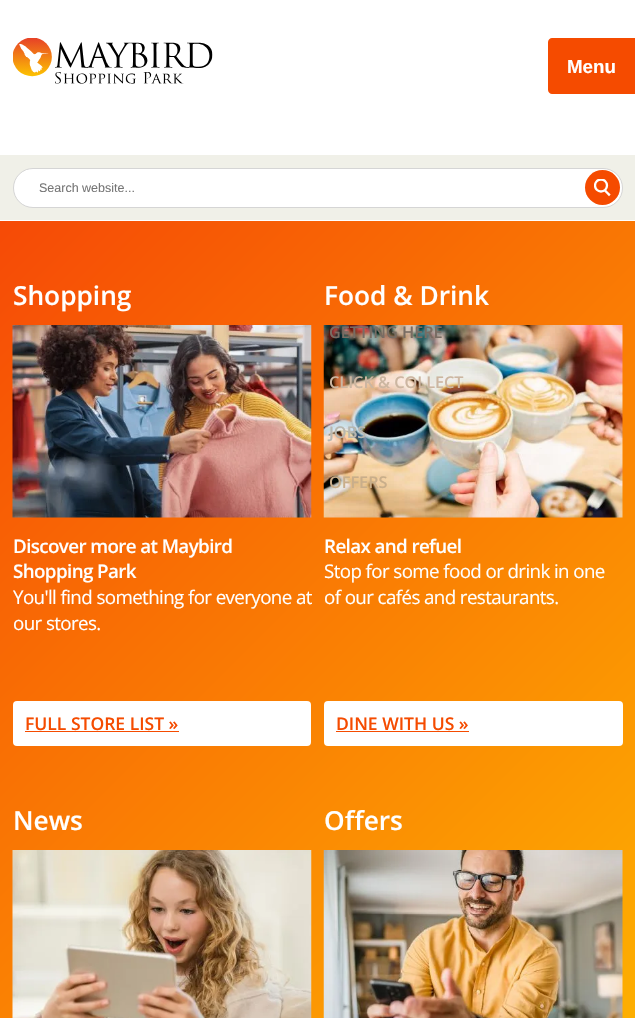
static SkFont makeFont(const char* family, int weight, float size, bool italic = false) {
  SkFontStyle style(weight, SkFontStyle::kNormal_Width,
    italic ? SkFontStyle::kItalic_Slant : SkFontStyle::kUpright_Slant);
  SkFont result(fontMgr->matchFamilyStyle(family, style), size);
  result.setSubpixel(true);
  return result;
}

static void text(SkCanvas* c, const char* s, float x, float y, const SkFont& font, SkColor color) {
  SkPaint ink(SkColor4f::FromColor(color));
  ink.setAntiAlias(true);
  c->drawString(s, x, y, font, ink);
}

static void spacedText(SkCanvas* c, const char* s, float x, float y, const SkFont& font, const SkPaint& ink, float letter, float word) {
  std::vector<SkGlyphID> glyphs(font.countText(s, strlen(s), SkTextEncoding::kUTF8));
  std::vector<float> xs(glyphs.size());
  font.textToGlyphs(s, strlen(s), SkTextEncoding::kUTF8, glyphs);
  font.getXPos(glyphs, xs, x);
  float extra = 0;
  for (size_t i = 0; i < glyphs.size(); i++) {
    xs[i] += extra;
    extra += letter + word * (glyphs[i] == font.unicharToGlyph(' '));
  }
  c->drawTextBlob(SkTextBlob::MakeFromPosHGlyphs(glyphs, xs, y, font), 0, 0, ink);
}

static void box(SkCanvas* c, float l, float t, float r, float b, SkColor color) {
  SkPaint ink(SkColor4f::FromColor(color));
  ink.setAntiAlias(true);
  c->drawRect(SkRect::MakeLTRB(l, t, r, b), ink);
}

static void roundBox(SkCanvas* c, float l, float t, float r, float b, float radius, SkColor color) {
  SkPaint ink(SkColor4f::FromColor(color));
  ink.setAntiAlias(true);
  c->drawRoundRect(SkRect::MakeLTRB(l, t, r, b), radius, radius, ink);
}

static void picture(SkCanvas* c, const char* path, float l, float t, float r, float b) {
  auto image = SkImages::DeferredFromEncodedData(SkData::MakeFromFileName(path));
  c->drawImageRect(image, SkRect::MakeLTRB(l, t, r, b), SkSamplingOptions());
}

void draw(SkCanvas* c) {
  SkPaint paint;
  paint.setAntiAlias(true);
  c->clear(0xffffffff);
  box(c, 0, 155, 635, 220, 0xfff0f0e8);
  paint.setColor(0xffffffff);
  c->drawRoundRect(SkRect::MakeLTRB(13.5f, 168.5f, 622.5f, 207.5f), 19.5f, 19.5f, paint);
  paint.setStyle(SkPaint::kStroke_Style);
  paint.setStrokeWidth(1);
  paint.setColor(0xffd5d5d5);
  c->drawRoundRect(SkRect::MakeLTRB(13.5f, 168.5f, 622.5f, 207.5f), 19.5f, 19.5f, paint);
  box(c, 26, 170, 27, 171, 0xffffffff);
  SkFont face1 = makeFont("Liberation Sans", 400, 12.5f);
  text(c, "Search website...", 39, 192, face1, 0xff757575);
  paint.setStyle(SkPaint::kFill_Style);
  paint.setColor(0xfff54b00);
  c->drawCircle(602.5f, 187.5f, 17.5f, paint);
  c->save();
  c->clipRect(SkRect::MakeLTRB(594, 179, 611, 196));
  paint.setStyle(SkPaint::kStroke_Style);
  paint.setStrokeWidth(2.3f);
  paint.setColor(0xffffffff);
  c->drawCircle(601, 185.5f, 6, paint);
  c->restore();
  paint.setStrokeCap(SkPaint::kSquare_Cap);
  c->drawPath(SkPathBuilder().moveTo(605.5f, 191).lineTo(609, 194.5f).detach(), paint);
  picture(c, "img_01.png", 13, 38, 213, 84);
  paint.setStyle(SkPaint::kFill_Style);
  paint.setColor(0xfff54b00);
  c->drawPath(SkPathBuilder().moveTo(552, 38).lineTo(635, 38).lineTo(635, 94).lineTo(552, 94).cubicTo(550, 94, 548, 92, 548, 90).lineTo(548, 42).cubicTo(548, 40, 550, 38, 552, 38).close().detach(), paint);
  SkFont face2 = makeFont("Liberation Sans", 700, 18.75f);
  text(c, "Menu", 567, 73, face2, 0xffffffff);
  {
    const SkColor colors[] = {0xfff64a06, 0xffffc400};
    const float stops[] = {0, 1};
    const SkPoint ends[] = {{-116, 338}, {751, 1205}};
    paint.setShader(SkGradientShader::MakeLinear(ends, colors, stops, 2, SkTileMode::kClamp));
    paint.setAlpha(255);
  }
  c->drawRect(SkRect::MakeLTRB(0, 221, 635, 1018), paint);
  picture(c, "img_03.png", 323, 325, 623, 518);
  SkFont face3 = makeFont("Open Sans", 600, 16.25f);
  text(c, "GETTING HERE", 329, 338, face3, 0xff786c63);
  text(c, "CLICK & COLLECT", 329, 388, face3, 0xffccb6a1);
  text(c, "JOBS", 329, 438, face3, 0xffb8b7af);
  text(c, "OFFERS", 329, 488, face3, 0xffc9ae8a);
  SkFont face4 = makeFont("Open Sans", 600, 26.25f);
  text(c, "Shopping", 13, 305, face4, 0xffffffff);
  picture(c, "img_02.png", 12, 325, 312, 518);
  SkFont face5 = makeFont("Open Sans", 600, 18.75f);
  paint.setShader(nullptr);
  paint.setColor(0xffffffff);
  spacedText(c, "Discover more at Maybird", 13, 553, face5, paint, -0.6f, 0);
  spacedText(c, "Shopping Park", 13, 578, face5, paint, -0.6f, 0);
  SkFont face6 = makeFont("Open Sans", 400, 18.75f);
  spacedText(c, "You'll find something for everyone at", 13, 604, face6, paint, -0.6f, 0);
  spacedText(c, "our stores.", 13, 630, face6, paint, -0.6f, 0);
  roundBox(c, 13, 701, 311, 746, 4, 0xffffffff);
  SkFont face7 = makeFont("Open Sans", 600, 17.5f);
  text(c, "FULL STORE LIST »", 25, 730, face7, 0xfff54b00);
  box(c, 25, 731, 179, 732, 0xfff54b00);
  text(c, "Food & Drink", 324, 305, face4, 0xffffffff);
  spacedText(c, "Relax and refuel", 324, 553, face5, paint, -0.6f, 0);
  spacedText(c, "Stop for some food or drink in one", 324, 578, face6, paint, -0.6f, 0);
  spacedText(c, "of our cafés and restaurants.", 324, 604, face6, paint, -0.6f, 0);
  roundBox(c, 324, 701, 623, 746, 4, 0xffffffff);
  text(c, "DINE WITH US »", 336, 730, face7, 0xfff54b00);
  box(c, 336, 731, 469, 732, 0xfff54b00);
  text(c, "News", 13, 830, face4, 0xffffffff);
  picture(c, "img_04.png", 12, 850, 312, 1018);
  text(c, "Offers", 324, 830, face4, 0xffffffff);
  picture(c, "img_05.png", 323, 850, 623, 1018);
}
